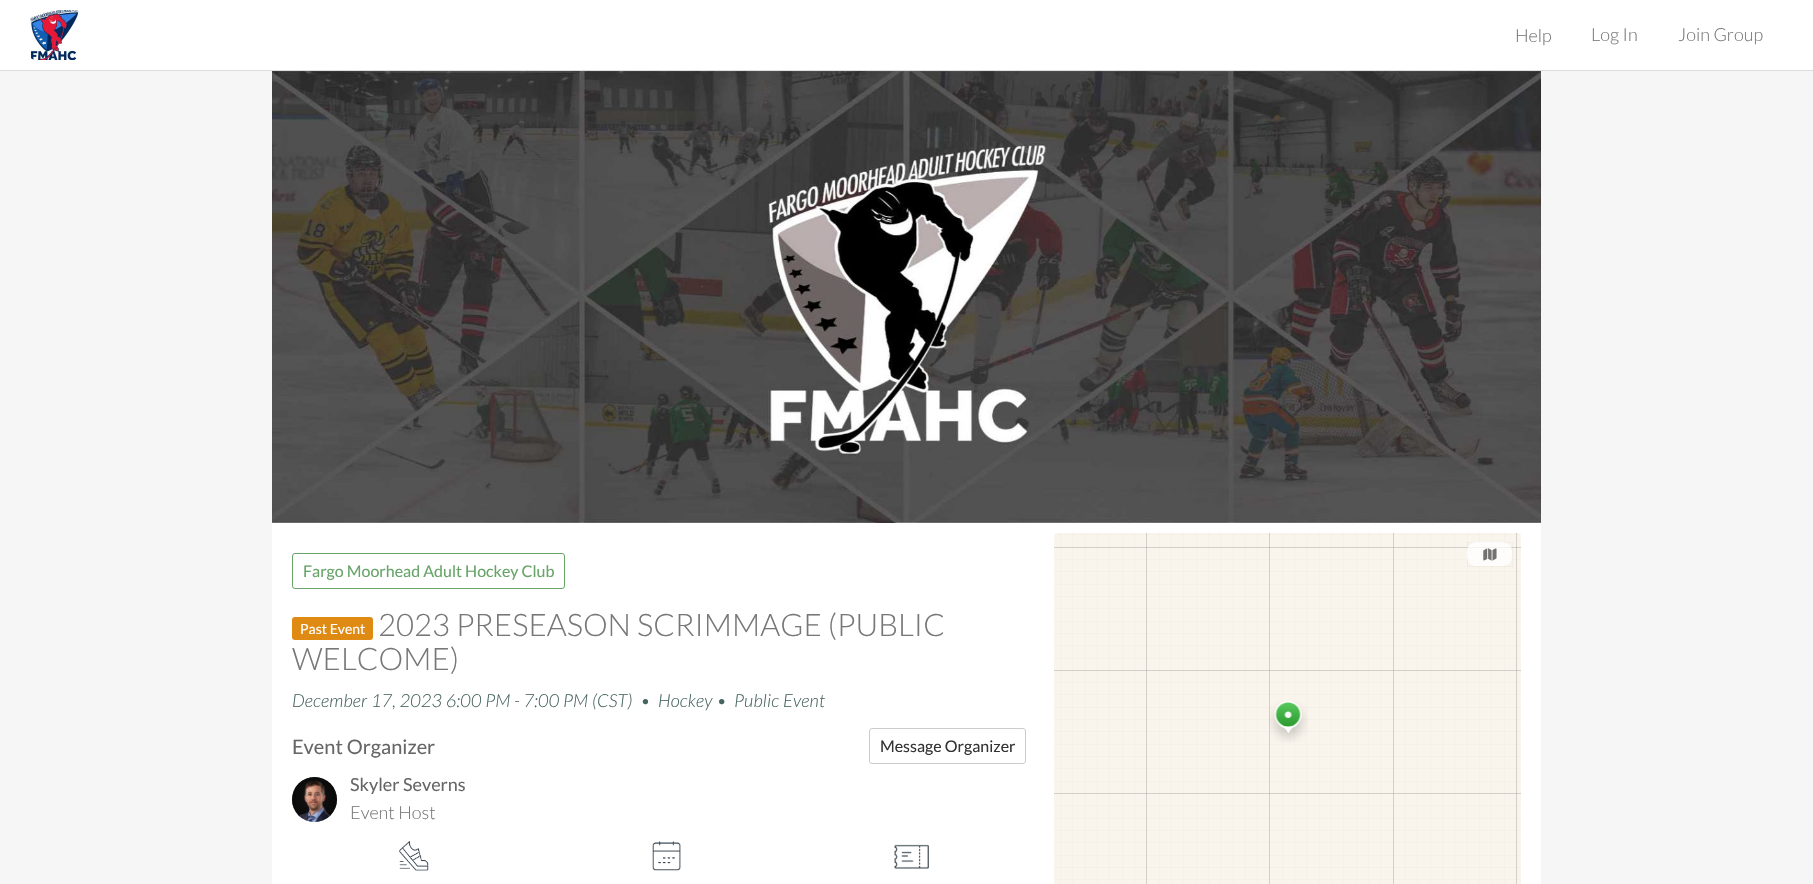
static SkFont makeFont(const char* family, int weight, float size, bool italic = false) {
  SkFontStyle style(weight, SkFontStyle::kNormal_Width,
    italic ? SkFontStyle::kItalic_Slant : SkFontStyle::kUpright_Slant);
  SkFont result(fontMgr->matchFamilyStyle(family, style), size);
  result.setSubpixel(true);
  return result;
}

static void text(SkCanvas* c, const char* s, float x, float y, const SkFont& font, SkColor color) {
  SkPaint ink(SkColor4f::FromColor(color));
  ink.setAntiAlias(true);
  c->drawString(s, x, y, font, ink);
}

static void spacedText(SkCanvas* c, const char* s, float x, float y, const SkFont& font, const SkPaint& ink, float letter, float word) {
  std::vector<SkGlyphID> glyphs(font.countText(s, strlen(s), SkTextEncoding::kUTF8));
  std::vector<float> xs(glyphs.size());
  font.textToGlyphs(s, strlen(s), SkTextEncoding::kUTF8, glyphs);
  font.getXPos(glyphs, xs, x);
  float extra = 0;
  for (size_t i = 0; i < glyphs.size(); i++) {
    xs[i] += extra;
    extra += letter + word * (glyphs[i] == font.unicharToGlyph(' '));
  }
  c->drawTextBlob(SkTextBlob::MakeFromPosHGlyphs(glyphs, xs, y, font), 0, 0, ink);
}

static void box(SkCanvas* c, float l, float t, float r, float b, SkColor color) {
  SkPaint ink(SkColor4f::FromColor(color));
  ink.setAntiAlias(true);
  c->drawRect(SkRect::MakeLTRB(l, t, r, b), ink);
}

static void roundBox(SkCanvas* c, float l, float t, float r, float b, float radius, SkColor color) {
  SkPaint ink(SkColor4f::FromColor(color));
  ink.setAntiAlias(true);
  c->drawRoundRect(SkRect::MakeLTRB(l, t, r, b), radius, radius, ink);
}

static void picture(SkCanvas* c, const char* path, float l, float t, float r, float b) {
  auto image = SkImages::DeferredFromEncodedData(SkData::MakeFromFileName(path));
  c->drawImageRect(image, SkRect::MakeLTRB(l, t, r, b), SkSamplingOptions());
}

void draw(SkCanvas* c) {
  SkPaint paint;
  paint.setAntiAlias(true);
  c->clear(0xfff6f6f6);
  box(c, 0, 0, 1813, 70, 0xffffffff);
  box(c, 0, 70, 1813, 71, 0xffdddddd);
  picture(c, "img_01.png", 30, 10, 79, 60);
  SkFont face1 = makeFont("Lato", 300, 18);
  text(c, "Help", 1515, 42, face1, 0xff777777);
  text(c, "Log In", 1591, 41, face1, 0xff777777);
  text(c, "Join Group", 1678, 41, face1, 0xff777777);
  box(c, 272, 523, 1541, 884, 0xffffffff);
  picture(c, "img_02.png", 272, 71, 1541, 523);
  paint.setStyle(SkPaint::kStroke_Style);
  paint.setStrokeWidth(1);
  paint.setColor(0xff67a468);
  c->drawRoundRect(SkRect::MakeLTRB(292.5f, 553.5f, 564.5f, 588.5f), 2.5f, 2.5f, paint);
  SkFont face2 = makeFont("Lato", 400, 16);
  text(c, "Fargo Moorhead Adult Hockey Club", 303, 577, face2, 0xff67a468);
  roundBox(c, 292, 617, 373, 640, 3, 0xffdf8a13);
  SkFont face3 = makeFont("Lato", 400, 14);
  text(c, "Past Event", 300, 634, face3, 0xffffffff);
  SkFont face4 = makeFont("Lato", 300, 31);
  text(c, "2023 PRESEASON SCRIMMAGE (PUBLIC", 378, 636, face4, 0xff777777);
  text(c, "WELCOME)", 292, 670, face4, 0xff777777);
  SkFont face5 = makeFont("Lato", 300, 18, true);
  paint.setStyle(SkPaint::kFill_Style);
  paint.setColor(0xff46635f);
  spacedText(c, "December 17, 2023 6:00 PM - 7:00 PM (CST)", 292, 707, face5, paint, 0.2f, 0);
  spacedText(c, "•", 640, 707, face5, paint, 0.2f, 0);
  spacedText(c, "Hockey •", 658, 707, face5, paint, 0.2f, 0);
  spacedText(c, "Public Event", 734, 707, face5, paint, 0.2f, 0);
  SkFont face6 = makeFont("Lato", 400, 20);
  text(c, "Event Organizer", 292, 754, face6, 0xff666666);
  paint.setStyle(SkPaint::kStroke_Style);
  paint.setColor(0xffcccccc);
  c->drawRoundRect(SkRect::MakeLTRB(869.5f, 728.5f, 1025.5f, 763.5f), 2.5f, 2.5f, paint);
  text(c, "Message Organizer", 880, 752, face2, 0xff333333);
  paint.setStyle(SkPaint::kFill_Style);
  paint.setColor(0xff636965);
  c->drawCircle(314.5f, 799.5f, 22.5f, paint);
  picture(c, "img_03.png", 292, 777, 337, 822);
  SkFont face7 = makeFont("Lato", 400, 18);
  text(c, "Skyler Severns", 350, 791, face7, 0xff666666);
  text(c, "Event Host", 350, 819, face1, 0xff777777);
  picture(c, "img_04.png", 399, 841, 429, 871);
  picture(c, "img_05.png", 652, 841, 681, 871);
  picture(c, "img_06.png", 894, 844, 929, 869);
  picture(c, "img_07.png", 1054, 533, 1521, 884);
  paint.setStyle(SkPaint::kStroke_Style);
  paint.setStrokeWidth(0.5f);
  paint.setColor(0x0d000000);
  c->drawRect(SkRect::MakeLTRB(1467.25f, 542.25f, 1512.75f, 566.75f), paint);
  roundBox(c, 1467, 542, 1512, 566, 9, 0xbfffffff);
  picture(c, "img_08.png", 1483, 548, 1497, 561);
  picture(c, "img_09.png", 1269, 701, 1308, 743);
}
